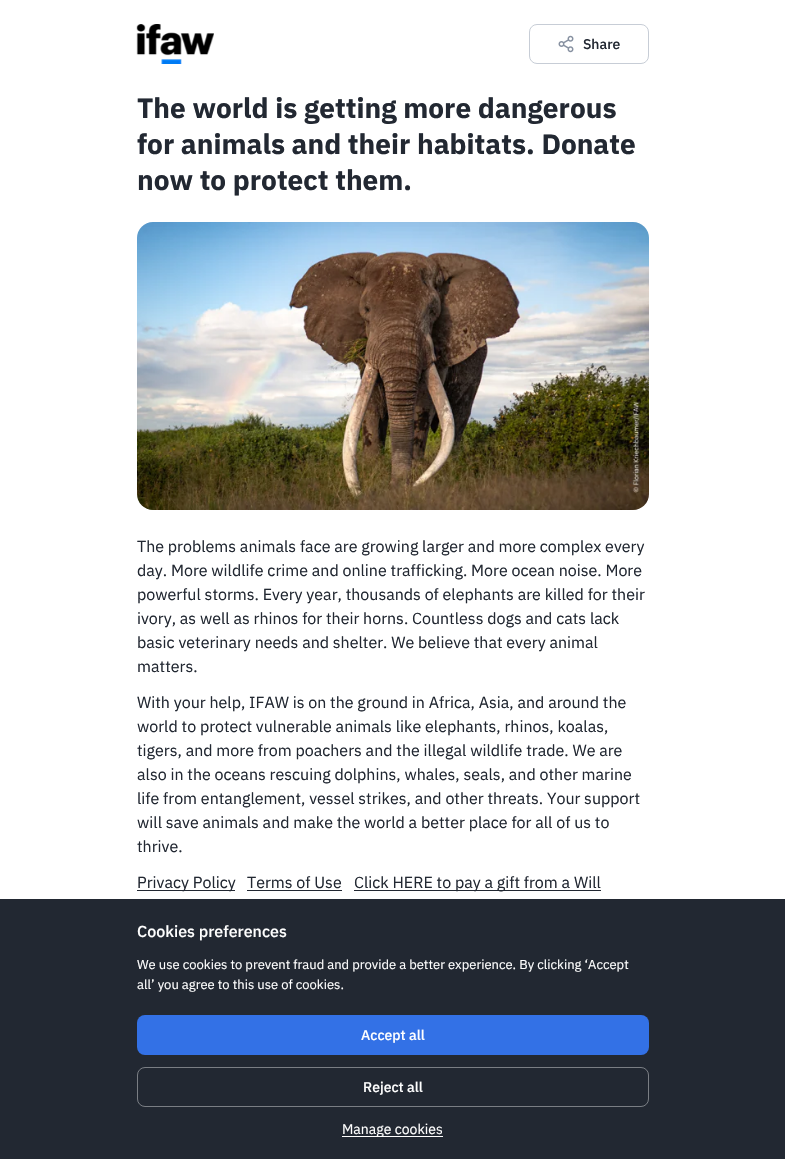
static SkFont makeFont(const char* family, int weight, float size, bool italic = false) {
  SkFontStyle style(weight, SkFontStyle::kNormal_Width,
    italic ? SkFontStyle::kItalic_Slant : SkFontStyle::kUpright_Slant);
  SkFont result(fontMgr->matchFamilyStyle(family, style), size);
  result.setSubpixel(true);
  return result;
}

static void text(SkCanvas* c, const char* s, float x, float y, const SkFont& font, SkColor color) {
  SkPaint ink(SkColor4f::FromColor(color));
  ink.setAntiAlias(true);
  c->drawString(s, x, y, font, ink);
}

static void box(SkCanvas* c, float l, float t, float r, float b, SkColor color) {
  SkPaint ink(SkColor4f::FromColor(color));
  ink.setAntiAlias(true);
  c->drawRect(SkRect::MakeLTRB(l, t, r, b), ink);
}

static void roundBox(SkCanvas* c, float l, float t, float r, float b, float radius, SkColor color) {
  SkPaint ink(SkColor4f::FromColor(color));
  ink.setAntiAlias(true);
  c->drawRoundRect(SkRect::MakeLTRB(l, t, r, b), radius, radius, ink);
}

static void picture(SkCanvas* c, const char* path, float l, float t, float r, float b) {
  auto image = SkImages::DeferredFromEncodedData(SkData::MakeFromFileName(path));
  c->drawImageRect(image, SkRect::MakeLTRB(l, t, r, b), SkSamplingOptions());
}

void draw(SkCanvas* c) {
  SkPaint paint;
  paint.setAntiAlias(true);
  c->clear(0xffffffff);
  picture(c, "img_01.png", 136, 24, 214, 64);
  paint.setStyle(SkPaint::kStroke_Style);
  paint.setStrokeWidth(1);
  paint.setColor(0xffc7cdd6);
  c->drawRoundRect(SkRect::MakeLTRB(529.5f, 24.5f, 648.5f, 63.5f), 7.5f, 7.5f, paint);
  picture(c, "img_02.png", 558, 35, 574, 53);
  SkFont face1 = makeFont("IBM Plex Sans", 500, 14);
  text(c, "Share", 583, 49, face1, 0xff222832);
  SkFont face2 = makeFont("IBM Plex Sans", 700, 28);
  text(c, "The world is getting more dangerous", 137, 118, face2, 0xff222832);
  text(c, "for animals and their habitats. Donate", 137, 154, face2, 0xff222832);
  text(c, "now to protect them.", 137, 190, face2, 0xff222832);
  picture(c, "img_03.png", 137, 222, 649, 510);
  SkFont face3 = makeFont("IBM Plex Sans", 400, 16);
  text(c, "The problems animals face are growing larger and more complex every", 137, 552, face3, 0xff222832);
  text(c, "day. More wildlife crime and online trafficking. More ocean noise. More", 137, 576, face3, 0xff222832);
  text(c, "powerful storms. Every year, thousands of elephants are killed for their", 137, 600, face3, 0xff222832);
  text(c, "ivory, as well as rhinos for their horns. Countless dogs and cats lack", 137, 624, face3, 0xff222832);
  text(c, "basic veterinary needs and shelter. We believe that every animal", 137, 648, face3, 0xff222832);
  text(c, "matters.", 137, 672, face3, 0xff222832);
  text(c, "With your help, IFAW is on the ground in Africa, Asia, and around the", 137, 708, face3, 0xff222832);
  text(c, "world to protect vulnerable animals like elephants, rhinos, koalas,", 137, 732, face3, 0xff222832);
  text(c, "tigers, and more from poachers and the illegal wildlife trade. We are", 137, 756, face3, 0xff222832);
  text(c, "also in the oceans rescuing dolphins, whales, seals, and other marine", 137, 780, face3, 0xff222832);
  text(c, "life from entanglement, vessel strikes, and other threats. Your support", 137, 804, face3, 0xff222832);
  text(c, "will save animals and make the world a better place for all of us to", 137, 828, face3, 0xff222832);
  text(c, "thrive.", 137, 852, face3, 0xff222832);
  box(c, 137, 890, 235, 891, 0xff222832);
  text(c, "Privacy Policy", 137, 888, face3, 0xff222832);
  text(c, "Terms of Use", 247, 888, face3, 0xff222832);
  box(c, 247, 890, 342, 891, 0xff222832);
  box(c, 354, 890, 601, 891, 0xff222832);
  text(c, "Click HERE to pay a gift from a Will", 354, 888, face3, 0xff222832);
  box(c, 0, 899, 785, 1159, 0xff222832);
  SkFont face4 = makeFont("IBM Plex Sans", 500, 16);
  text(c, "Cookies preferences", 137, 937, face4, 0xffffffff);
  SkFont face5 = makeFont("IBM Plex Sans", 400, 13);
  text(c, "We use cookies to prevent fraud and provide a better experience. By clicking ‘Accept", 137, 969, face5, 0xffffffff);
  text(c, "all’ you agree to this use of cookies.", 137, 989, face5, 0xffffffff);
  roundBox(c, 137, 1015, 649, 1055, 8, 0xff3371e6);
  text(c, "Accept all", 361, 1040, face1, 0xffffffff);
  paint.setColor(0xff7a7e84);
  c->drawRoundRect(SkRect::MakeLTRB(137.5f, 1067.5f, 648.5f, 1106.5f), 7.5f, 7.5f, paint);
  text(c, "Reject all", 363, 1092, face1, 0xffffffff);
  box(c, 342, 1136, 443, 1137, 0xffffffff);
  SkFont face6 = makeFont("IBM Plex Sans", 400, 14);
  text(c, "Manage cookies", 342, 1134, face6, 0xffffffff);
}
